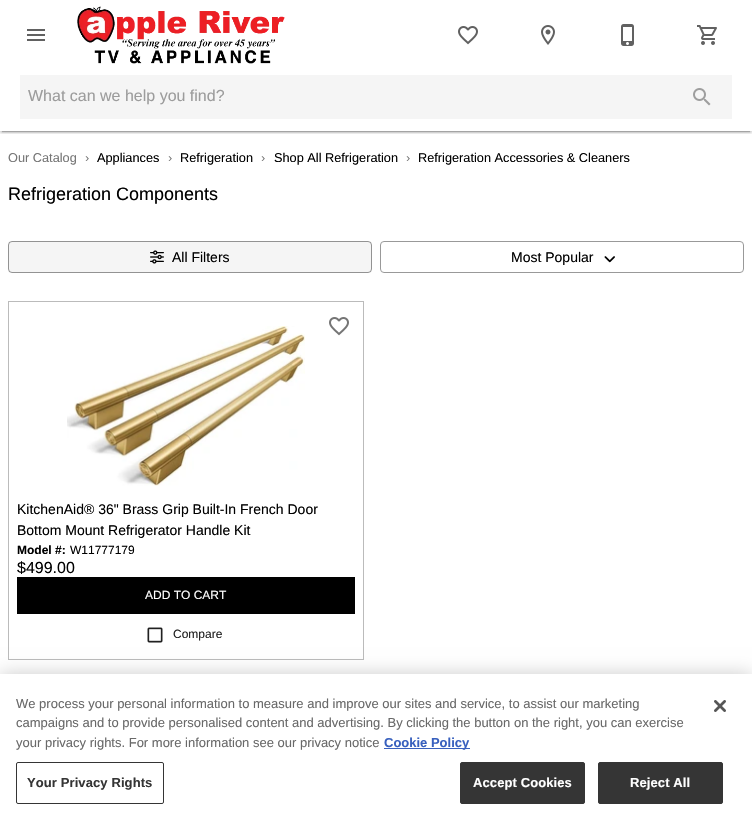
static SkFont makeFont(const char* family, int weight, float size, bool italic = false) {
  SkFontStyle style(weight, SkFontStyle::kNormal_Width,
    italic ? SkFontStyle::kItalic_Slant : SkFontStyle::kUpright_Slant);
  SkFont result(fontMgr->matchFamilyStyle(family, style), size);
  result.setSubpixel(true);
  return result;
}

static void text(SkCanvas* c, const char* s, float x, float y, const SkFont& font, SkColor color) {
  SkPaint ink(SkColor4f::FromColor(color));
  ink.setAntiAlias(true);
  c->drawString(s, x, y, font, ink);
}

static void spacedText(SkCanvas* c, const char* s, float x, float y, const SkFont& font, const SkPaint& ink, float letter, float word) {
  std::vector<SkGlyphID> glyphs(font.countText(s, strlen(s), SkTextEncoding::kUTF8));
  std::vector<float> xs(glyphs.size());
  font.textToGlyphs(s, strlen(s), SkTextEncoding::kUTF8, glyphs);
  font.getXPos(glyphs, xs, x);
  float extra = 0;
  for (size_t i = 0; i < glyphs.size(); i++) {
    xs[i] += extra;
    extra += letter + word * (glyphs[i] == font.unicharToGlyph(' '));
  }
  c->drawTextBlob(SkTextBlob::MakeFromPosHGlyphs(glyphs, xs, y, font), 0, 0, ink);
}

static void box(SkCanvas* c, float l, float t, float r, float b, SkColor color) {
  SkPaint ink(SkColor4f::FromColor(color));
  ink.setAntiAlias(true);
  c->drawRect(SkRect::MakeLTRB(l, t, r, b), ink);
}

static void roundBox(SkCanvas* c, float l, float t, float r, float b, float radius, SkColor color) {
  SkPaint ink(SkColor4f::FromColor(color));
  ink.setAntiAlias(true);
  c->drawRoundRect(SkRect::MakeLTRB(l, t, r, b), radius, radius, ink);
}

static void picture(SkCanvas* c, const char* path, float l, float t, float r, float b) {
  auto image = SkImages::DeferredFromEncodedData(SkData::MakeFromFileName(path));
  c->drawImageRect(image, SkRect::MakeLTRB(l, t, r, b), SkSamplingOptions());
}

void draw(SkCanvas* c) {
  SkPaint paint;
  paint.setAntiAlias(true);
  c->clear(0xffffffff);
  c->save();
  c->clipRect(SkRect::MakeLTRB(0, 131, 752, 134));
  paint.setColor(0x1f000000);
  paint.setMaskFilter(SkMaskFilter::MakeBlur(kNormal_SkBlurStyle, 2.5f));
  c->drawRect(SkRect::MakeLTRB(0, 0, 752, 132), paint);
  paint.setMaskFilter(nullptr);
  paint.setColor(0x24000000);
  paint.setMaskFilter(SkMaskFilter::MakeBlur(kNormal_SkBlurStyle, 1));
  c->drawRect(SkRect::MakeLTRB(0, 1, 752, 133), paint);
  paint.setMaskFilter(nullptr);
  c->restore();
  c->save();
  c->clipRect(SkRect::MakeLTRB(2, 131, 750, 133));
  paint.setColor(0x33000000);
  paint.setMaskFilter(SkMaskFilter::MakeBlur(kNormal_SkBlurStyle, 0.5f));
  c->drawRect(SkRect::MakeLTRB(2, 4, 750, 132), paint);
  paint.setMaskFilter(nullptr);
  c->restore();
  picture(c, "img_01.png", 27, 29, 45, 41);
  picture(c, "img_02.png", 77, 6, 285, 64);
  picture(c, "img_03.png", 458, 26, 478, 45);
  picture(c, "img_04.png", 541, 25, 555, 45);
  picture(c, "img_05.png", 621, 24, 634, 46);
  picture(c, "img_06.png", 697, 25, 717, 45);
  box(c, 20, 75, 732, 119, 0xfff5f5f5);
  SkFont face1 = makeFont("Liberation Sans", 400, 16);
  text(c, "What can we help you find?", 28, 101, face1, 0xff9c9c9c);
  picture(c, "img_07.png", 693, 88, 711, 106);
  SkFont face2 = makeFont("Liberation Sans", 400, 12.75f);
  text(c, "Our Catalog", 8, 162, face2, 0xff757575);
  text(c, "›", 85, 162, face2, 0xff757575);
  text(c, "Appliances", 97, 162, face2, 0xff000000);
  text(c, "›", 168, 162, face2, 0xff757575);
  text(c, "Refrigeration", 180, 162, face2, 0xff000000);
  text(c, "›", 261, 162, face2, 0xff757575);
  text(c, "Shop All Refrigeration", 274, 162, face2, 0xff000000);
  text(c, "›", 406, 162, face2, 0xff757575);
  text(c, "Refrigeration Accessories & Cleaners", 418, 162, face2, 0xff000000);
  SkFont face3 = makeFont("Liberation Sans", 400, 18);
  text(c, "Refrigeration Components", 8, 200, face3, 0xff000000);
  roundBox(c, 8, 241, 372, 273, 4, 0xfff5f5f5);
  paint.setStyle(SkPaint::kStroke_Style);
  paint.setStrokeWidth(1);
  paint.setColor(0x66000000);
  c->drawRoundRect(SkRect::MakeLTRB(8.5f, 241.5f, 371.5f, 272.5f), 3.5f, 3.5f, paint);
  picture(c, "img_08.png", 150, 250, 164, 264);
  SkFont face4 = makeFont("Liberation Sans", 400, 14);
  text(c, "All Filters", 172, 262, face4, 0xff000000);
  paint.setColor(0xff999999);
  c->drawRoundRect(SkRect::MakeLTRB(380.5f, 241.5f, 743.5f, 272.5f), 3.5f, 3.5f, paint);
  text(c, "Most Popular", 511, 262, face4, 0xff000000);
  picture(c, "img_09.png", 604, 256, 615, 263);
  paint.setColor(0xffbbbbbb);
  c->drawRect(SkRect::MakeLTRB(8.5f, 301.5f, 363.5f, 659.5f), paint);
  picture(c, "img_10.png", 67, 326, 305, 486);
  picture(c, "img_11.png", 329, 317, 349, 336);
  text(c, "KitchenAid® 36\" Brass Grip Built-In French Door", 17, 514, face4, 0xff000000);
  text(c, "Bottom Mount Refrigerator Handle Kit", 17, 535, face4, 0xff000000);
  SkFont face5 = makeFont("Liberation Sans", 700, 12);
  text(c, "Model #:", 17, 554, face5, 0xff000000);
  SkFont face6 = makeFont("Liberation Sans", 400, 12);
  text(c, "W11777179", 70, 554, face6, 0xff000000);
  text(c, "$499.00", 17, 573, face1, 0xff000000);
  box(c, 17, 577, 355, 614, 0xff000000);
  text(c, "ADD TO CART", 145, 599, face6, 0xffffffff);
  picture(c, "img_12.png", 147, 627, 163, 643);
  text(c, "Compare", 173, 638, face6, 0xff212121);
  paint.setStyle(SkPaint::kFill_Style);
  paint.setColor(0x33000000);
  paint.setMaskFilter(SkMaskFilter::MakeBlur(kNormal_SkBlurStyle, 9));
  c->drawRect(SkRect::MakeLTRB(0, 674, 752, 824), paint);
  paint.setMaskFilter(nullptr);
  box(c, 0, 674, 752, 824, 0xffffffff);
  SkFont face7 = makeFont("Liberation Sans", 400, 13);
  text(c, "We process your personal information to measure and improve our sites and service, to assist our marketing", 16, 708, face7, 0xff696969);
  text(c, "campaigns and to provide personalised content and advertising. By clicking the button on the right, you can exercise", 16, 727, face7, 0xff696969);
  text(c, "your privacy rights. For more information see our privacy notice", 16, 747, face7, 0xff696969);
  box(c, 384, 748, 470, 749, 0xff3860be);
  SkFont face8 = makeFont("Liberation Sans", 700, 13);
  text(c, "Cookie Policy", 384, 747, face8, 0xff3860be);
  paint.setStyle(SkPaint::kStroke_Style);
  paint.setColor(0xff353535);
  c->drawRoundRect(SkRect::MakeLTRB(16.5f, 762.5f, 163.5f, 803.5f), 1.5f, 1.5f, paint);
  paint.setStyle(SkPaint::kFill_Style);
  spacedText(c, "Your Privacy Rights", 27, 787, face8, paint, 0.1f, 0);
  c->drawRoundRect(SkRect::MakeLTRB(460.5f, 762.5f, 584.5f, 803.5f), 1.5f, 1.5f, paint);
  paint.setStyle(SkPaint::kStroke_Style);
  c->drawRoundRect(SkRect::MakeLTRB(460.5f, 762.5f, 584.5f, 803.5f), 1.5f, 1.5f, paint);
  paint.setStyle(SkPaint::kFill_Style);
  paint.setColor(0xffffffff);
  spacedText(c, "Accept Cookies", 473, 787, face8, paint, 0.1f, 0);
  paint.setColor(0xff353535);
  c->drawRoundRect(SkRect::MakeLTRB(598.5f, 762.5f, 722.5f, 803.5f), 1.5f, 1.5f, paint);
  paint.setStyle(SkPaint::kStroke_Style);
  c->drawRoundRect(SkRect::MakeLTRB(598.5f, 762.5f, 722.5f, 803.5f), 1.5f, 1.5f, paint);
  paint.setStyle(SkPaint::kFill_Style);
  paint.setColor(0xffffffff);
  spacedText(c, "Reject All", 630, 787, face8, paint, 0.1f, 0);
  picture(c, "img_13.png", 714, 700, 726, 712);
}
